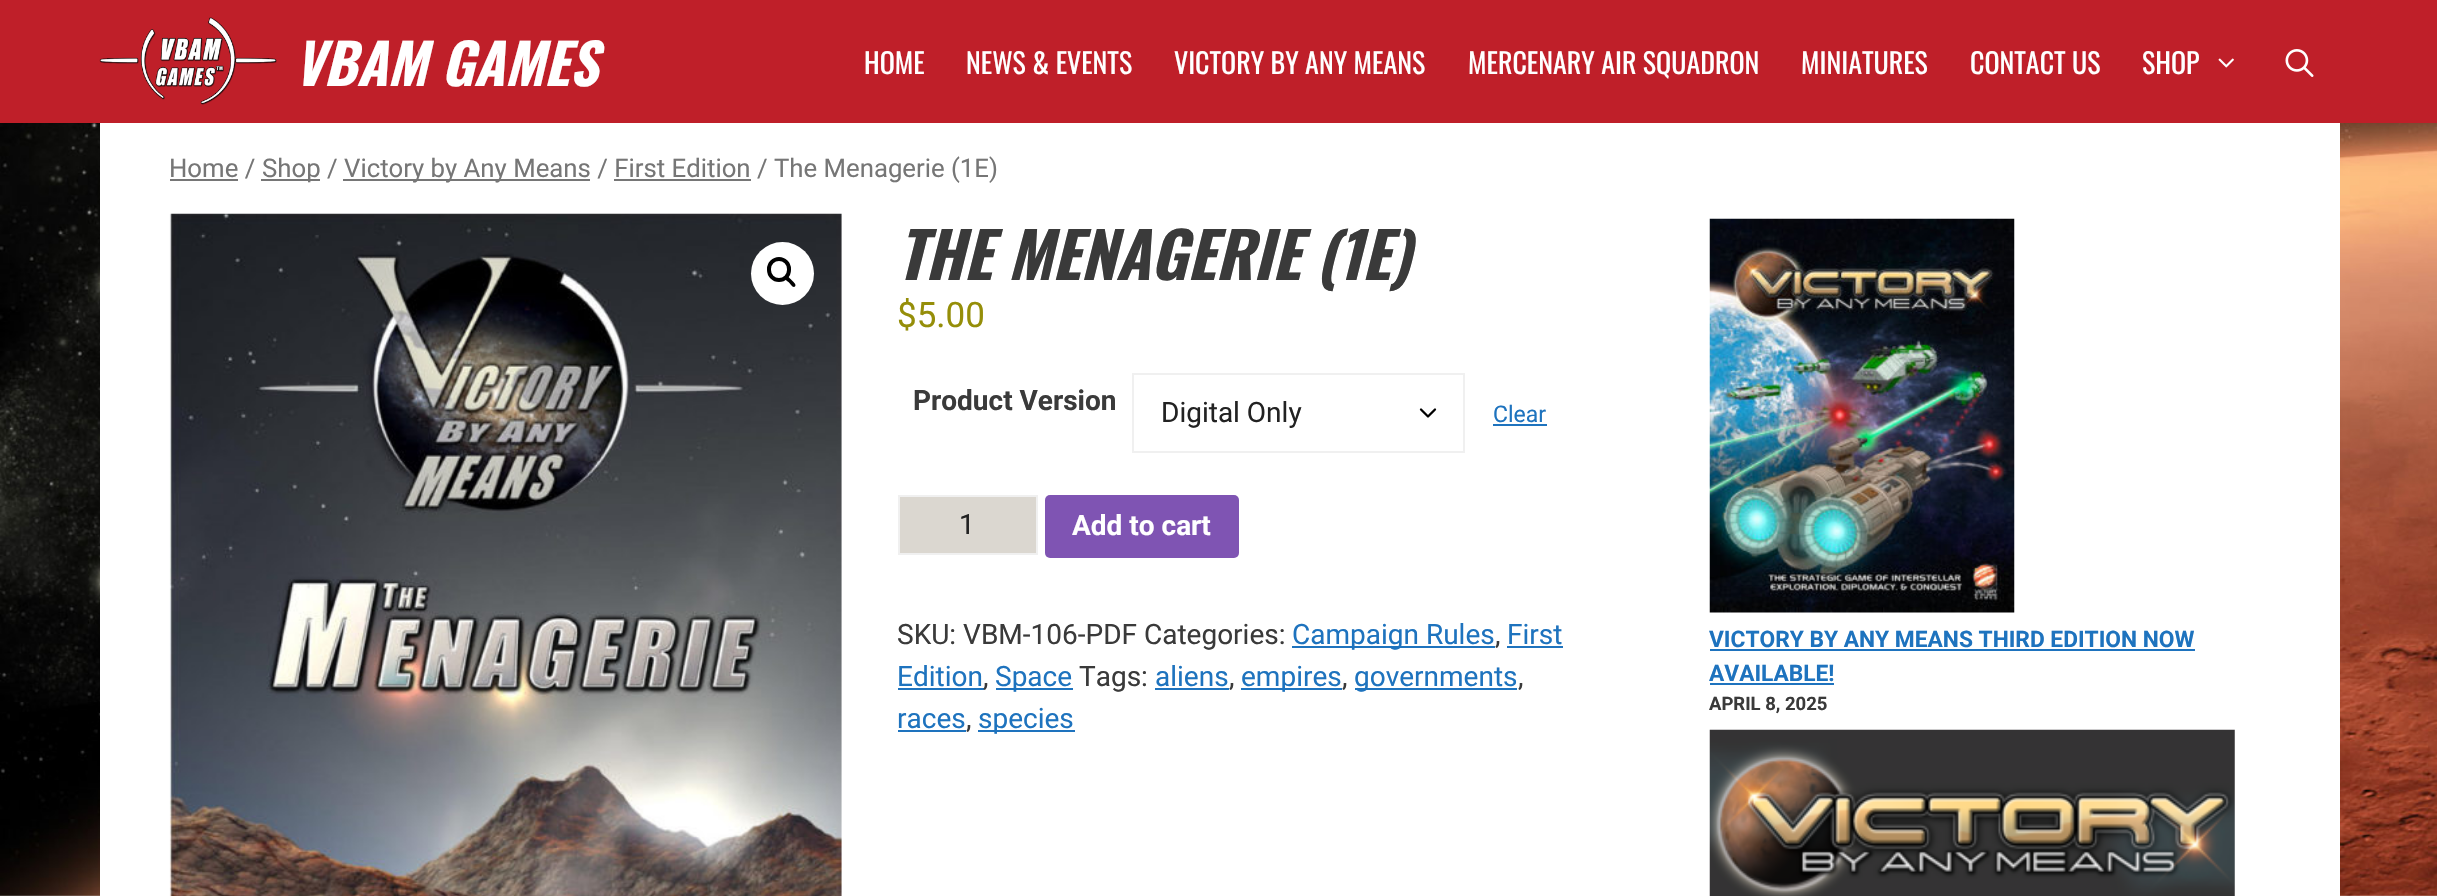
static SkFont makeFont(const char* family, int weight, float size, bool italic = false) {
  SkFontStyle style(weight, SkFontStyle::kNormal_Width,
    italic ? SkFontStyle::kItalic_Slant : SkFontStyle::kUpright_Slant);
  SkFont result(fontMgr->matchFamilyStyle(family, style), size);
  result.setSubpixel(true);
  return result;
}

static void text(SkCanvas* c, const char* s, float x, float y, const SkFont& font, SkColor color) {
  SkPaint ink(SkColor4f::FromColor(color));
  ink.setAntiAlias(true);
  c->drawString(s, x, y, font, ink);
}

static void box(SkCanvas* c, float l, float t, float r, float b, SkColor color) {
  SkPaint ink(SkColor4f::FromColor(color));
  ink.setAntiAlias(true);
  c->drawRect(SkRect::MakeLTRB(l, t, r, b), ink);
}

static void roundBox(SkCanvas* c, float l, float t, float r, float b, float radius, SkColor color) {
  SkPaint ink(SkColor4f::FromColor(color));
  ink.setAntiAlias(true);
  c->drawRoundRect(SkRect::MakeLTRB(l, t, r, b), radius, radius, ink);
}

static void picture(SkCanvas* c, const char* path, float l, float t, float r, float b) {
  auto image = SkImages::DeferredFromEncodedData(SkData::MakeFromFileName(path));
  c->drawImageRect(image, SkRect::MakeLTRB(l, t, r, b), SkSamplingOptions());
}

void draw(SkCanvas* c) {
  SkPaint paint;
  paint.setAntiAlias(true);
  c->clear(0xffffffff);
  picture(c, "img_01.png", 0, 123, 2437, 896);
  box(c, 0, 0, 2437, 123, 0xffbf1f29);
  picture(c, "img_02.png", 99, 17, 277, 105);
  SkFont face1 = makeFont("Oswald", 700, 56, true);
  text(c, "VBAM GAMES", 294, 86, face1, 0xffffffff);
  SkFont face2 = makeFont("Oswald", 400, 28);
  text(c, "HOME", 864, 74, face2, 0xffffffff);
  text(c, "NEWS & EVENTS", 966, 74, face2, 0xffffffff);
  text(c, "VICTORY BY ANY MEANS", 1174, 74, face2, 0xffffffff);
  text(c, "MERCENARY AIR SQUADRON", 1468, 74, face2, 0xffffffff);
  text(c, "MINIATURES", 1801, 74, face2, 0xffffffff);
  text(c, "CONTACT US", 1970, 74, face2, 0xffffffff);
  text(c, "SHOP", 2142, 74, face2, 0xffffffff);
  picture(c, "img_03.png", 2218, 58, 2234, 68);
  picture(c, "img_04.png", 2285, 49, 2314, 77);
  box(c, 100, 123, 2340, 896, 0xffffffff);
  SkFont face3 = makeFont("Roboto", 400, 25.75f);
  text(c, "Home /", 169, 177, face3, 0xff767676);
  box(c, 170, 179, 238, 181, 0xff767676);
  box(c, 261, 179, 320, 181, 0xff767676);
  text(c, "Shop /", 262, 177, face3, 0xff767676);
  box(c, 343, 179, 590, 181, 0xff767676);
  text(c, "Victory by Any Means / First Edition / The Menagerie (1E)", 344, 177, face3, 0xff767676);
  box(c, 614, 179, 751, 181, 0xff767676);
  picture(c, "img_05.png", 169, 213, 842, 896);
  paint.setColor(0xffffffff);
  c->drawCircle(782.5f, 273.5f, 31.5f, paint);
  paint.setStyle(SkPaint::kStroke_Style);
  paint.setStrokeWidth(4);
  paint.setColor(0xff000000);
  c->drawRoundRect(SkRect::MakeLTRB(769, 259, 789, 280), 10, 10, paint);
  paint.setStyle(SkPaint::kFill_Style);
  c->drawPath(SkPathBuilder().moveTo(785, 276.5f).cubicTo(787, 274.5f, 790.5f, 279, 791.5f, 280).cubicTo(792.5f, 281, 797, 284.5f, 795, 286.5f).cubicTo(793, 288.5f, 790, 283.5f, 789, 282.5f).cubicTo(788, 281.5f, 783, 278.5f, 785, 276.5f).close().detach(), paint);
  SkFont face4 = makeFont("Oswald", 700, 63, true);
  text(c, "THE MENAGERIE (1E)", 897, 280, face4, 0xff3a3a3a);
  SkFont face5 = makeFont("Roboto", 400, 35);
  text(c, "$5.00", 897, 327, face5, 0xff958e09);
  SkFont face6 = makeFont("Roboto", 700, 28);
  text(c, "Product Version", 913, 410, face6, 0xff3a3a3a);
  paint.setStyle(SkPaint::kStroke_Style);
  paint.setStrokeWidth(2.3f);
  paint.setStrokeCap(SkPaint::kRound_Cap);
  paint.setStrokeJoin(SkPaint::kRound_Join);
  c->drawPath(SkPathBuilder().moveTo(1421, 409.5f).lineTo(1428, 416.5f).lineTo(1435, 409.5f).detach(), paint);
  paint.setStrokeWidth(2);
  paint.setStrokeCap(SkPaint::kButt_Cap);
  paint.setStrokeJoin(SkPaint::kMiter_Join);
  paint.setColor(0xfff0f0f0);
  c->drawRect(SkRect::MakeLTRB(1133, 374, 1464, 452), paint);
  SkFont face7 = makeFont("Roboto", 400, 28);
  text(c, "Digital Only", 1161, 422, face7, 0xff222222);
  SkFont face8 = makeFont("Roboto", 400, 23);
  text(c, "Clear", 1493, 422, face8, 0xff1e73be);
  box(c, 1493, 424, 1547, 426, 0xff1e73be);
  paint.setStyle(SkPaint::kFill_Style);
  paint.setColor(0xffdbd7d0);
  c->drawRect(SkRect::MakeLTRB(899, 496, 1037, 554), paint);
  paint.setStyle(SkPaint::kStroke_Style);
  paint.setColor(0xfff0f0f0);
  c->drawRect(SkRect::MakeLTRB(899, 496, 1037, 554), paint);
  text(c, "1", 959, 534, face7, 0xff222222);
  roundBox(c, 1045, 495, 1239, 558, 5, 0xff7f54b3);
  text(c, "Add to cart", 1072, 535, face6, 0xffffffff);
  text(c, "SKU: VBM-106-PDF Categories:", 897, 644, face7, 0xff3a3a3a);
  box(c, 1292, 646, 1495, 648, 0xff1e73be);
  text(c, "Campaign Rules", 1292, 644, face7, 0xff1e73be);
  text(c, ",", 1495, 644, face7, 0xff3a3a3a);
  box(c, 1507, 646, 1563, 648, 0xff1e73be);
  text(c, "First", 1507, 644, face7, 0xff1e73be);
  text(c, "Edition", 897, 686, face7, 0xff1e73be);
  box(c, 898, 688, 984, 690, 0xff1e73be);
  text(c, ",", 983, 686, face7, 0xff3a3a3a);
  box(c, 996, 688, 1073, 690, 0xff1e73be);
  text(c, "Space", 995, 686, face7, 0xff1e73be);
  text(c, "Tags:", 1079, 686, face7, 0xff3a3a3a);
  text(c, "aliens", 1155, 686, face7, 0xff1e73be);
  text(c, ",", 1229, 686, face7, 0xff3a3a3a);
  box(c, 1155, 688, 1229, 690, 0xff1e73be);
  box(c, 1241, 688, 1342, 690, 0xff1e73be);
  text(c, "empires", 1241, 686, face7, 0xff1e73be);
  text(c, ",", 1342, 686, face7, 0xff3a3a3a);
  box(c, 1355, 688, 1517, 690, 0xff1e73be);
  text(c, "governments", 1354, 686, face7, 0xff1e73be);
  text(c, ",", 1518, 686, face7, 0xff3a3a3a);
  text(c, "races", 897, 728, face7, 0xff1e73be);
  box(c, 898, 730, 966, 732, 0xff1e73be);
  text(c, ",", 966, 728, face7, 0xff3a3a3a);
  box(c, 978, 730, 1075, 732, 0xff1e73be);
  text(c, "species", 978, 728, face7, 0xff1e73be);
  picture(c, "img_06.png", 1709, 218, 2015, 613);
  SkFont face9 = makeFont("Roboto", 700, 22.75f);
  text(c, "VICTORY BY ANY MEANS THIRD EDITION NOW", 1709, 647, face9, 0xff1e73be);
  box(c, 1710, 649, 2195, 651, 0xff1e73be);
  text(c, "AVAILABLE!", 1709, 681, face9, 0xff1e73be);
  box(c, 1710, 683, 1834, 685, 0xff1e73be);
  SkFont face10 = makeFont("Roboto", 700, 18.5f);
  text(c, "APRIL 8, 2025", 1709, 710, face10, 0xff3a3a3a);
  picture(c, "img_07.png", 1709, 729, 2235, 896);
}
